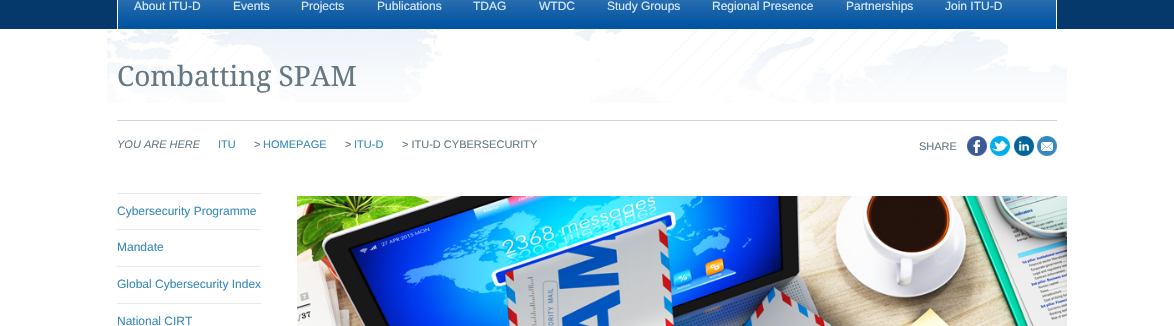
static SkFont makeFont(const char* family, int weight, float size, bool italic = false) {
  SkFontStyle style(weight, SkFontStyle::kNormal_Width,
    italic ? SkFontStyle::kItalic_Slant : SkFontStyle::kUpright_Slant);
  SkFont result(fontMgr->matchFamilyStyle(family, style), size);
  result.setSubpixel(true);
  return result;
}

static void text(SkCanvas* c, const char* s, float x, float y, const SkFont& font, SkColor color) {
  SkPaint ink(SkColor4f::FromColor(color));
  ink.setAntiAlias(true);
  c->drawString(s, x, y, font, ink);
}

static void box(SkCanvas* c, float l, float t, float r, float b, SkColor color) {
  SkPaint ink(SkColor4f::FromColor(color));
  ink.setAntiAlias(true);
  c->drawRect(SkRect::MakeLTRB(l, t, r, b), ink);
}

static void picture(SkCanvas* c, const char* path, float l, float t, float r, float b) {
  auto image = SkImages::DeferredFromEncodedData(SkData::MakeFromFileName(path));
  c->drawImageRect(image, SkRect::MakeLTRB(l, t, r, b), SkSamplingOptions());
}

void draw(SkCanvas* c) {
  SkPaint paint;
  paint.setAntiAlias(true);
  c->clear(0xffffffff);
  box(c, 0, 0, 1174, 29, 0xff05396b);
  box(c, 117, 0, 1057, 29, 0xffffffff);
  picture(c, "img_01.png", 118, 0, 1056, 29);
  SkFont face1 = makeFont("Liberation Sans", 400, 12);
  text(c, "About ITU-D", 134, 10, face1, 0xffd6ebff);
  text(c, "Events", 233, 10, face1, 0xffd6ebff);
  text(c, "Projects", 301, 10, face1, 0xffd6ebff);
  text(c, "Publications", 377, 10, face1, 0xffd6ebff);
  text(c, "TDAG", 473, 10, face1, 0xffd6ebff);
  text(c, "WTDC", 539, 10, face1, 0xffd6ebff);
  text(c, "Study Groups", 607, 10, face1, 0xffd6ebff);
  text(c, "Regional Presence", 712, 10, face1, 0xffd6ebff);
  text(c, "Partnerships", 846, 10, face1, 0xffd6ebff);
  text(c, "Join ITU-D", 945, 10, face1, 0xffd6ebff);
  picture(c, "img_02.png", 107, 29, 1067, 103);
  SkFont face2 = makeFont("Droid Serif", 400, 28);
  text(c, "Combatting SPAM", 117, 86, face2, 0xff657782);
  box(c, 117, 120, 1057, 121, 0xffd5d5d5);
  SkFont face3 = makeFont("Liberation Sans", 400, 11, true);
  text(c, "YOU ARE HERE", 117, 148, face3, 0xff657782);
  SkFont face4 = makeFont("Liberation Sans", 400, 11);
  text(c, "ITU", 218, 148, face4, 0xff3789bd);
  text(c, ">", 254, 148, face4, 0xff657782);
  text(c, "HOMEPAGE", 263, 148, face4, 0xff3789bd);
  text(c, ">", 345, 148, face4, 0xff657782);
  text(c, "ITU-D", 354, 148, face4, 0xff3789bd);
  text(c, "> ITU-D CYBERSECURITY", 402, 148, face4, 0xff657782);
  text(c, "SHARE", 919, 150, face4, 0xff657782);
  picture(c, "img_03.png", 967, 136, 987, 156);
  picture(c, "img_04.png", 990, 136, 1010, 156);
  picture(c, "img_05.png", 1014, 136, 1034, 156);
  picture(c, "img_06.png", 1037, 136, 1057, 156);
  box(c, 117, 193, 261, 194, 0xffe9eaea);
  text(c, "Cybersecurity Programme", 117, 215, face1, 0xff3789bd);
  box(c, 117, 229, 261, 230, 0xffe9eaea);
  text(c, "Mandate", 117, 251, face1, 0xff3789bd);
  box(c, 117, 266, 261, 267, 0xffe9eaea);
  text(c, "Global Cybersecurity Index", 117, 288, face1, 0xff3789bd);
  box(c, 117, 303, 261, 304, 0xffe9eaea);
  text(c, "National CIRT", 117, 325, face1, 0xff3789bd);
  picture(c, "img_07.png", 297, 196, 1067, 326);
}
